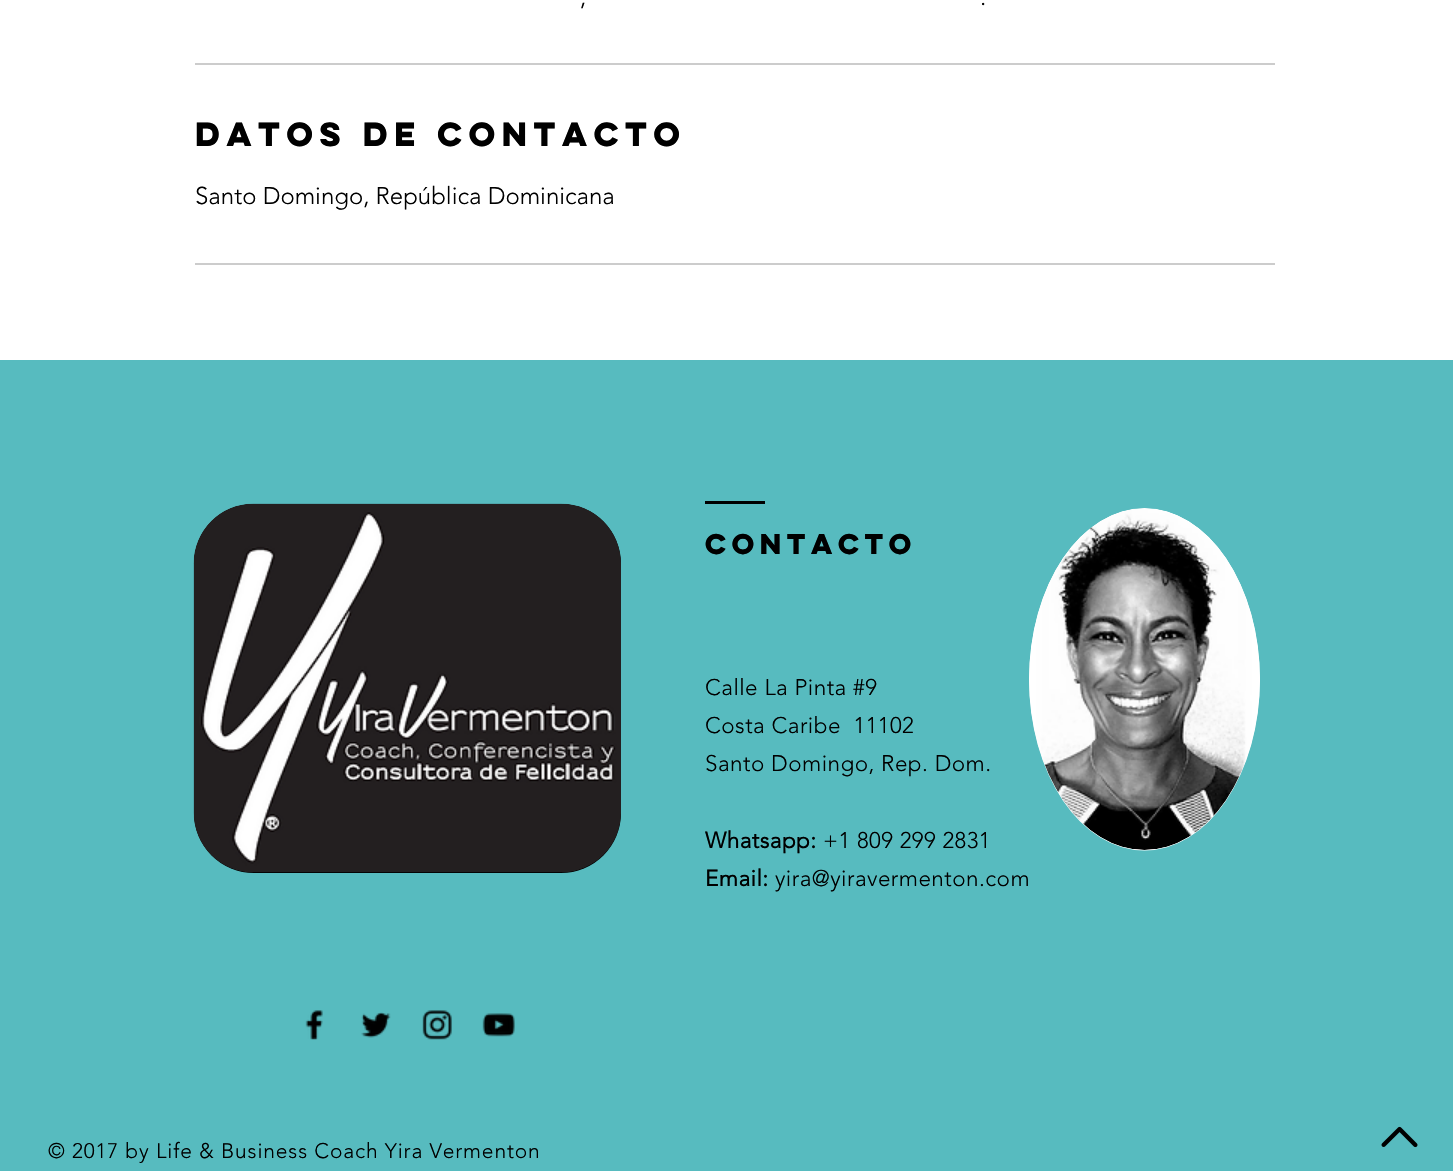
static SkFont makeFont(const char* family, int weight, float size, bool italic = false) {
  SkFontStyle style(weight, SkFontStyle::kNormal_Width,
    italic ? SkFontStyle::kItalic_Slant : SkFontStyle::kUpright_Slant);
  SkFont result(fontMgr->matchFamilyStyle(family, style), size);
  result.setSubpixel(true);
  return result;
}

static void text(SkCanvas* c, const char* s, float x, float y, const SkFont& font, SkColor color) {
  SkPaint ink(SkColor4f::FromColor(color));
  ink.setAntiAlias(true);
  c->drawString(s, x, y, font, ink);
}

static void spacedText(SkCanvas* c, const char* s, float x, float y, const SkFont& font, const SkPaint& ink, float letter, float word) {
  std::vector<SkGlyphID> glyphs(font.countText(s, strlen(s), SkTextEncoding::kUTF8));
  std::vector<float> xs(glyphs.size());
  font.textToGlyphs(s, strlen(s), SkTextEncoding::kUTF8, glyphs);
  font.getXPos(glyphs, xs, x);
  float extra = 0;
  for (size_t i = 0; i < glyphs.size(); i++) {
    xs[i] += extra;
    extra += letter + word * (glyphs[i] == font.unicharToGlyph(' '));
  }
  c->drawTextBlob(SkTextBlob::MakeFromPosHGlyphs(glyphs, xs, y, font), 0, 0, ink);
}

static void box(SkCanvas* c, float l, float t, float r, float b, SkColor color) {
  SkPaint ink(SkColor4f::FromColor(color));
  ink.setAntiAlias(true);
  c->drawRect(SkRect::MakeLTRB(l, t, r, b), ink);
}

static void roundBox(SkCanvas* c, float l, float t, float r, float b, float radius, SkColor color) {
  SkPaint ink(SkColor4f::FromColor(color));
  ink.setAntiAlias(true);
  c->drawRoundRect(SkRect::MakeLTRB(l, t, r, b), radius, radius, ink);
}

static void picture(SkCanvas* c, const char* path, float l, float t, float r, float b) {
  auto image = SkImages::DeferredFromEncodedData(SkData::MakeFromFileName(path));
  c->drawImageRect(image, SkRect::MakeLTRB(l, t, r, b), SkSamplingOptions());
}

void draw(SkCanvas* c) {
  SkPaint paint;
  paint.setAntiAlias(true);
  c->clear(0xffffffff);
  SkFont face1 = makeFont("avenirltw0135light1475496", 300, 24);
  text(c, ",", 580, 5, face1, 0xff000000);
  text(c, ".", 980, 5, face1, 0xff000000);
  box(c, 195, 63, 1275, 65, 0xffcccccc);
  SkFont face2 = makeFont("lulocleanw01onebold", 700, 30);
  text(c, "Datos de contacto", 195, 146, face2, 0xff000000);
  text(c, "Santo Domingo, República Dominicana", 195, 204, face1, 0xff000000);
  box(c, 195, 263, 1275, 265, 0xffcccccc);
  box(c, 0, 360, 1453, 1171, 0xff57bbbf);
  roundBox(c, 194, 504, 621, 873, 60, 0xff000000);
  picture(c, "img_01.png", 193, 503, 621, 873);
  box(c, 705, 501, 765, 504, 0xff000000);
  SkFont face3 = makeFont("lulocleanw01onebold", 700, 25.5f);
  text(c, "ContactO", 705, 554, face3, 0xff000000);
  paint.setColor(0xffffffff);
  c->drawOval(SkRect::MakeLTRB(1029, 508.5f, 1260, 850.5f), paint);
  picture(c, "img_02.png", 1029, 508, 1260, 850);
  SkFont face4 = makeFont("avenirltw0135light1475496", 300, 22.5f);
  paint.setColor(0xff000000);
  spacedText(c, "Calle La Pinta #9", 705, 695, face4, paint, 0.45f, 0);
  spacedText(c, "Costa Caribe  11102", 705, 733, face4, paint, 0.45f, 0);
  spacedText(c, "Santo Domingo, Rep. Dom.", 705, 771, face4, paint, 0.45f, 0);
  SkFont face5 = makeFont("avenirltw0135light1475496", 700, 22.5f);
  spacedText(c, "Whatsapp:", 705, 848, face5, paint, 0.45f, 0);
  spacedText(c, "+1 809 299 2831", 823, 848, face4, paint, 0.45f, 0);
  spacedText(c, "Email:", 705, 886, face5, paint, 0.45f, 0);
  spacedText(c, "yira@yiravermenton.com", 775, 886, face4, paint, 0.45f, 0);
  picture(c, "img_03.png", 305, 1010, 323, 1040);
  picture(c, "img_04.png", 361, 1012, 391, 1038);
  picture(c, "img_05.png", 422, 1010, 452, 1040);
  picture(c, "img_06.png", 482, 1013, 515, 1037);
  picture(c, "img_07.png", 1381, 1126, 1418, 1148);
  SkFont face6 = makeFont("avenirltw0135light1475496", 300, 21);
  spacedText(c, "© 2017 by Life & Business Coach Yira Vermenton", 48, 1158, face6, paint, 0.85f, 0);
}
